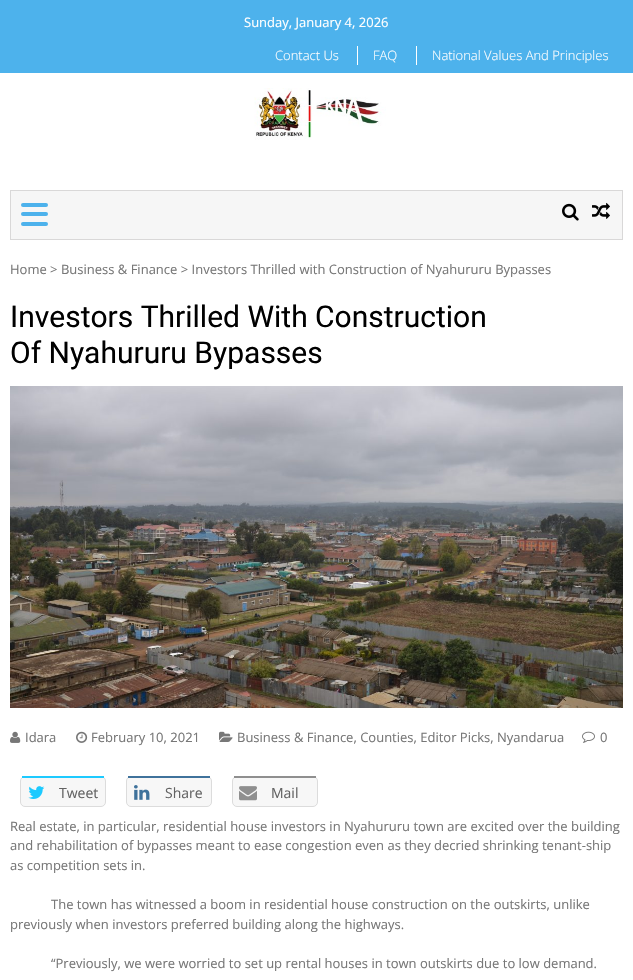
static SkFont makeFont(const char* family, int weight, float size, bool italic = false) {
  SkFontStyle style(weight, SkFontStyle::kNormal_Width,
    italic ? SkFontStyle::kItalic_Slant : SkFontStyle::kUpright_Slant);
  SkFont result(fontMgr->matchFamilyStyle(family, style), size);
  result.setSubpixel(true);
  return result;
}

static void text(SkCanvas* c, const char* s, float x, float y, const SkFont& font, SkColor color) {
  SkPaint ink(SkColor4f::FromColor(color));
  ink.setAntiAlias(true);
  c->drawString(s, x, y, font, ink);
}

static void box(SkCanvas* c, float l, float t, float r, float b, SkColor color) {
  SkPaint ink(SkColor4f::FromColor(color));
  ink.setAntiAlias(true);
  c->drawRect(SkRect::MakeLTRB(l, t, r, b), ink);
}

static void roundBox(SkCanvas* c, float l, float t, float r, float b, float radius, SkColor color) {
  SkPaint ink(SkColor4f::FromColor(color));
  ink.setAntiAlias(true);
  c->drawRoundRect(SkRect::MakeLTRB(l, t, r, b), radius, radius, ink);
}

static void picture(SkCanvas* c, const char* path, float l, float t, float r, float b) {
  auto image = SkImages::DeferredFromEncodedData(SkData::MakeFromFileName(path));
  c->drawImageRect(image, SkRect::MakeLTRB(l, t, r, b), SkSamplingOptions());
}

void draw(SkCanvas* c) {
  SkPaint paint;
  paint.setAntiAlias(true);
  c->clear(0xffffffff);
  box(c, 0, 0, 633, 73, 0xff4db2ec);
  SkFont face1 = makeFont("Open Sans", 400, 13);
  text(c, "Sunday, January 4, 2026", 244, 27, face1, 0xffffffff);
  SkFont face2 = makeFont("Open Sans", 300, 13);
  text(c, "Contact Us", 275, 60, face2, 0xffffffff);
  box(c, 357, 46, 358, 65, 0xffffffff);
  text(c, "FAQ", 373, 60, face2, 0xffffffff);
  box(c, 416, 46, 417, 65, 0xffffffff);
  text(c, "National Values And Principles", 432, 60, face2, 0xffffffff);
  picture(c, "img_01.png", 254, 88, 386, 140);
  paint.setColor(0xfff6f6f6);
  c->drawRect(SkRect::MakeLTRB(10.5f, 190.5f, 622.5f, 239.5f), paint);
  paint.setStyle(SkPaint::kStroke_Style);
  paint.setStrokeWidth(1);
  paint.setColor(0xffd9d8d8);
  c->drawRect(SkRect::MakeLTRB(10.5f, 190.5f, 622.5f, 239.5f), paint);
  roundBox(c, 21, 203, 48, 207, 2, 0xff4db2ec);
  roundBox(c, 21, 212, 48, 216, 2, 0xff4db2ec);
  roundBox(c, 21, 222, 48, 226, 2, 0xff4db2ec);
  picture(c, "img_02.png", 562, 203, 579, 221);
  picture(c, "img_03.png", 592, 202, 610, 219);
  text(c, "Home > Business & Finance > Investors Thrilled with Construction of Nyahururu Bypasses", 10, 274, face1, 0xff777777);
  SkFont face3 = makeFont("Roboto", 400, 30);
  text(c, "Investors Thrilled With Construction", 10, 327, face3, 0xff000000);
  text(c, "Of Nyahururu Bypasses", 10, 363, face3, 0xff000000);
  picture(c, "img_04.png", 10, 386, 623, 708);
  picture(c, "img_05.png", 10, 731, 21, 743);
  text(c, "Idara", 25, 742, face1, 0xff777777);
  picture(c, "img_06.png", 76, 731, 88, 743);
  text(c, "February 10, 2021", 91, 742, face1, 0xff777777);
  picture(c, "img_07.png", 219, 731, 233, 742);
  text(c, "Business & Finance, Counties, Editor Picks, Nyandarua", 237, 742, face1, 0xff777777);
  picture(c, "img_08.png", 582, 731, 595, 743);
  text(c, "0", 600, 742, face1, 0xff777777);
  paint.setStyle(SkPaint::kFill_Style);
  paint.setColor(0xfff7f7f7);
  c->drawRoundRect(SkRect::MakeLTRB(20.5f, 776.5f, 105.5f, 806.5f), 4.5f, 4.5f, paint);
  paint.setStyle(SkPaint::kStroke_Style);
  paint.setColor(0xffdcdcdc);
  c->drawRoundRect(SkRect::MakeLTRB(20.5f, 776.5f, 105.5f, 806.5f), 4.5f, 4.5f, paint);
  box(c, 22, 776, 104, 778, 0xff1dcaff);
  picture(c, "img_09.png", 28, 786, 45, 799);
  SkFont face4 = makeFont("Open Sans", 400, 14);
  text(c, "Tweet", 59, 798, face4, 0xff636363);
  paint.setStyle(SkPaint::kFill_Style);
  paint.setColor(0xfff7f7f7);
  c->drawRoundRect(SkRect::MakeLTRB(126.5f, 776.5f, 211.5f, 806.5f), 4.5f, 4.5f, paint);
  paint.setStyle(SkPaint::kStroke_Style);
  paint.setColor(0xffdcdcdc);
  c->drawRoundRect(SkRect::MakeLTRB(126.5f, 776.5f, 211.5f, 806.5f), 4.5f, 4.5f, paint);
  box(c, 128, 776, 210, 778, 0xff3f729b);
  picture(c, "img_10.png", 134, 785, 150, 800);
  text(c, "Share", 165, 798, face4, 0xff636363);
  paint.setStyle(SkPaint::kFill_Style);
  paint.setColor(0xfff7f7f7);
  c->drawRoundRect(SkRect::MakeLTRB(232.5f, 776.5f, 317.5f, 806.5f), 4.5f, 4.5f, paint);
  paint.setStyle(SkPaint::kStroke_Style);
  paint.setColor(0xffdcdcdc);
  c->drawRoundRect(SkRect::MakeLTRB(232.5f, 776.5f, 317.5f, 806.5f), 4.5f, 4.5f, paint);
  box(c, 234, 776, 316, 778, 0xff8f8f8f);
  picture(c, "img_11.png", 239, 786, 257, 801);
  text(c, "Mail", 271, 798, face4, 0xff636363);
  text(c, "Real estate, in particular, residential house investors in Nyahururu town are excited over the building", 10, 831, face1, 0xff777777);
  text(c, "and rehabilitation of bypasses meant to ease congestion even as they decried shrinking tenant-ship", 10, 850, face1, 0xff777777);
  text(c, "as competition sets in.", 10, 870, face1, 0xff777777);
  text(c, "The town has witnessed a boom in residential house construction on the outskirts, unlike", 51, 909, face1, 0xff777777);
  text(c, "previously when investors preferred building along the highways.", 10, 929, face1, 0xff777777);
  text(c, "“Previously, we were worried to set up rental houses in town outskirts due to low demand.", 51, 968, face1, 0xff777777);
}
